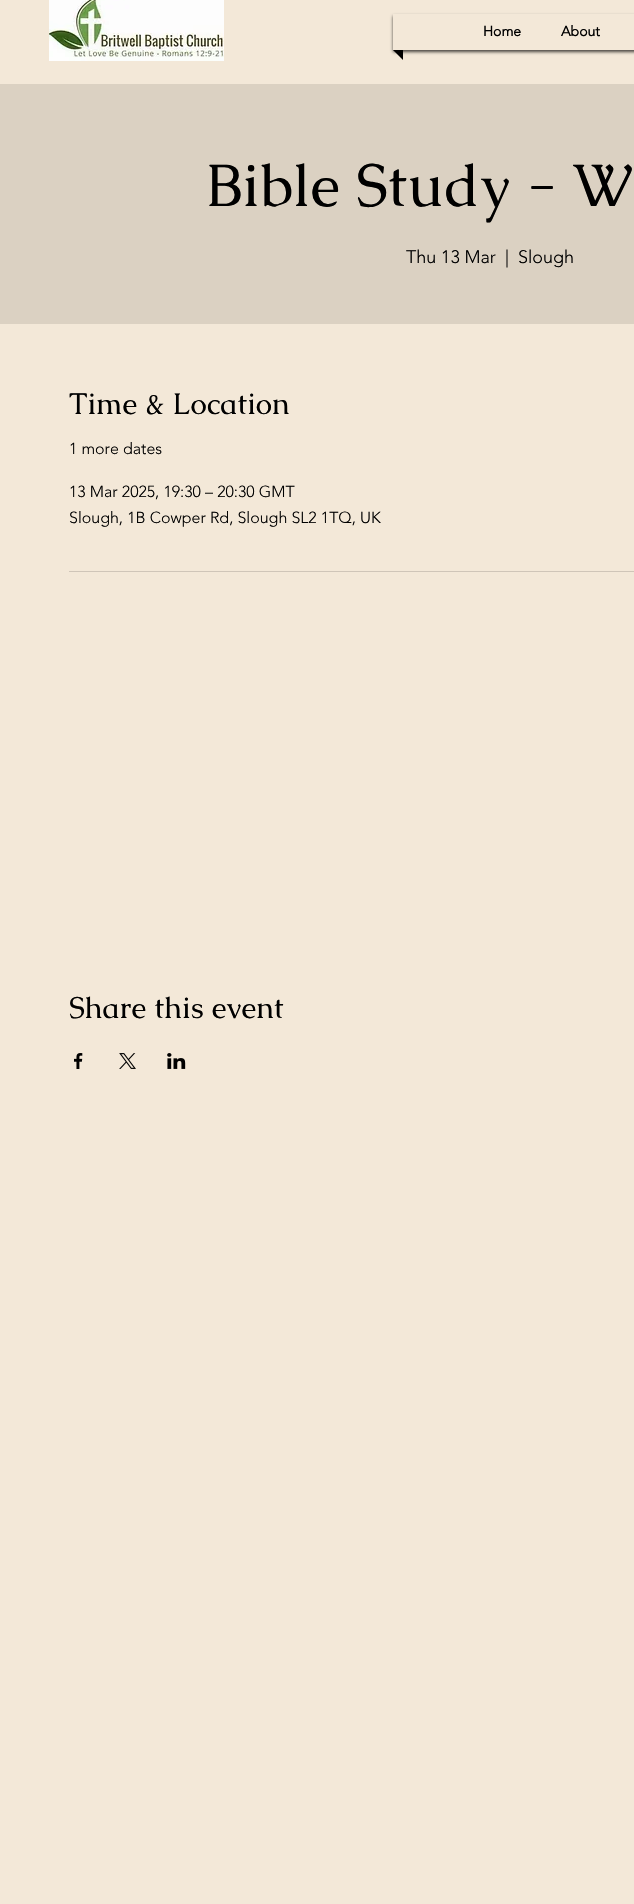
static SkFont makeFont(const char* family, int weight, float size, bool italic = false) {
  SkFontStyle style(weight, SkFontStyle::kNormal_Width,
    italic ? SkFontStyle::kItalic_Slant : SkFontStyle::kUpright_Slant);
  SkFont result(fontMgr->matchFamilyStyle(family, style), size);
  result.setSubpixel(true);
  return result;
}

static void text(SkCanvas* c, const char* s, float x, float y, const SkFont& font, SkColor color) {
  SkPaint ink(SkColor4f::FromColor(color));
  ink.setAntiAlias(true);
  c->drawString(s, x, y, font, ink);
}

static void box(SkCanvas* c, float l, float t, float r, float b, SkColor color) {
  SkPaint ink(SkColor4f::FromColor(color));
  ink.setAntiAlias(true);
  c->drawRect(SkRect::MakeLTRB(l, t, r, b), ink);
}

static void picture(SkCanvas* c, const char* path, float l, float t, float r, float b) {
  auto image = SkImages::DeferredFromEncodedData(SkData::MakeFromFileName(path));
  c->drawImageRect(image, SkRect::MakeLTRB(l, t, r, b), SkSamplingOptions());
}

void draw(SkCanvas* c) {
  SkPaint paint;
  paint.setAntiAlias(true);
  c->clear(0xfff3e8d8);
  picture(c, "img_01.png", 49, 0, 224, 61);
  paint.setColor(0xff000000);
  c->drawPath(SkPathBuilder().moveTo(393, 50).lineTo(403, 50).lineTo(403, 60).close().detach(), paint);
  c->save();
  c->clipPath(SkPathBuilder(SkPathFillType::kEvenOdd).moveTo(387, 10).lineTo(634, 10).lineTo(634, 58).lineTo(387, 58).close().moveTo(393, 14).lineTo(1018, 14).lineTo(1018, 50).lineTo(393, 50).close().detach(), true);
  paint.setColor(0xb3000000);
  paint.setMaskFilter(SkMaskFilter::MakeBlur(kNormal_SkBlurStyle, 1.5f));
  c->drawRect(SkRect::MakeLTRB(393, 16, 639, 52), paint);
  paint.setMaskFilter(nullptr);
  c->restore();
  SkFont face1 = makeFont("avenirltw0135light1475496", 700, 14);
  text(c, "Home", 483, 36, face1, 0xff000000);
  text(c, "About", 561, 36, face1, 0xff000000);
  box(c, 0, 84, 634, 324, 0xffdbd1c2);
  SkFont face2 = makeFont("Caudex", 400, 60);
  text(c, "Bible Study - W", 206, 206, face2, 0xff000000);
  SkFont face3 = makeFont("avenirltw0135light1475496", 300, 18);
  text(c, "Thu 13 Mar", 406, 263, face3, 0xff000000);
  text(c, "|", 505, 263, face3, 0xff000000);
  text(c, "Slough", 518, 263, face3, 0xff000000);
  SkFont face4 = makeFont("Caudex", 400, 30);
  text(c, "Time & Location", 69, 414, face4, 0xff000000);
  SkFont face5 = makeFont("avenirltw0135light1475496", 300, 16);
  text(c, "1 more dates", 69, 454, face5, 0xff000000);
  text(c, "13 Mar 2025, 19:30 – 20:30 GMT", 69, 497, face5, 0xff000000);
  text(c, "Slough, 1B Cowper Rd, Slough SL2 1TQ, UK", 69, 523, face5, 0xff000000);
  box(c, 69, 571, 634, 572, 0xffcfc5b8);
  text(c, "Share this event", 69, 1018, face4, 0xff000000);
  picture(c, "img_02.png", 74, 1053, 83, 1069);
  picture(c, "img_03.png", 119, 1053, 136, 1069);
  picture(c, "img_04.png", 167, 1053, 186, 1069);
}
